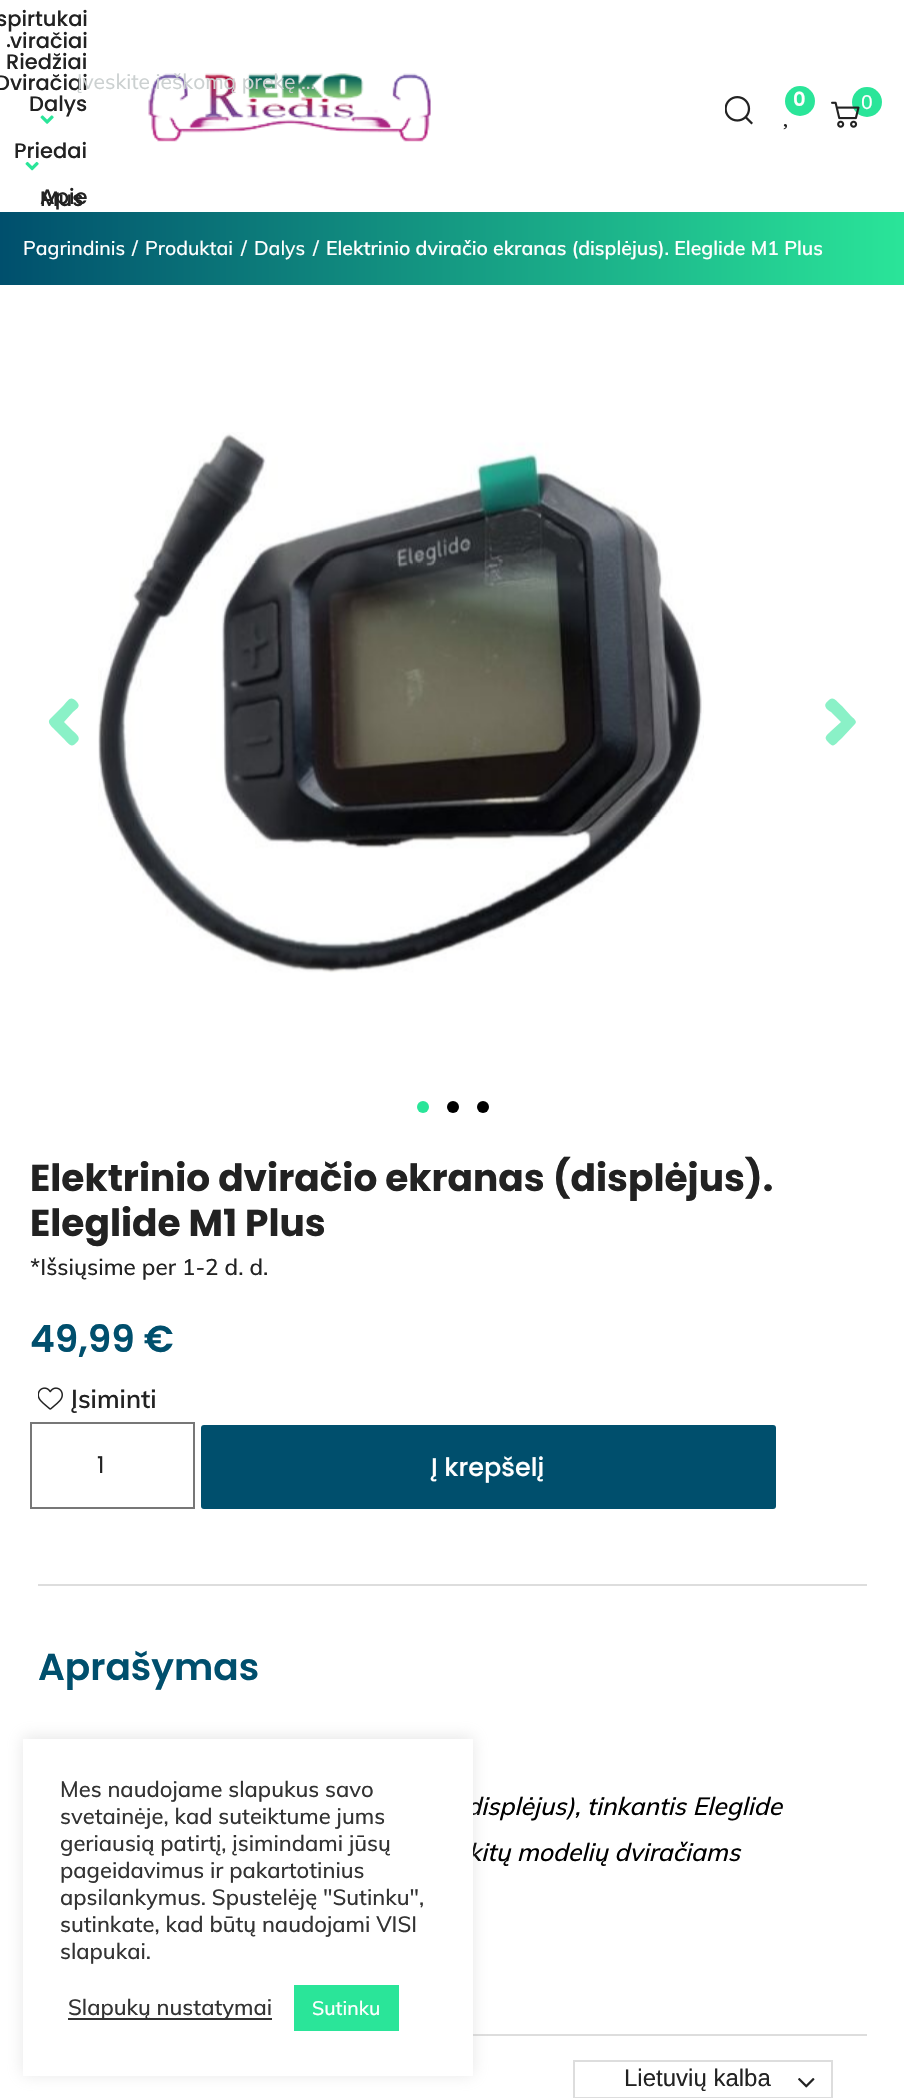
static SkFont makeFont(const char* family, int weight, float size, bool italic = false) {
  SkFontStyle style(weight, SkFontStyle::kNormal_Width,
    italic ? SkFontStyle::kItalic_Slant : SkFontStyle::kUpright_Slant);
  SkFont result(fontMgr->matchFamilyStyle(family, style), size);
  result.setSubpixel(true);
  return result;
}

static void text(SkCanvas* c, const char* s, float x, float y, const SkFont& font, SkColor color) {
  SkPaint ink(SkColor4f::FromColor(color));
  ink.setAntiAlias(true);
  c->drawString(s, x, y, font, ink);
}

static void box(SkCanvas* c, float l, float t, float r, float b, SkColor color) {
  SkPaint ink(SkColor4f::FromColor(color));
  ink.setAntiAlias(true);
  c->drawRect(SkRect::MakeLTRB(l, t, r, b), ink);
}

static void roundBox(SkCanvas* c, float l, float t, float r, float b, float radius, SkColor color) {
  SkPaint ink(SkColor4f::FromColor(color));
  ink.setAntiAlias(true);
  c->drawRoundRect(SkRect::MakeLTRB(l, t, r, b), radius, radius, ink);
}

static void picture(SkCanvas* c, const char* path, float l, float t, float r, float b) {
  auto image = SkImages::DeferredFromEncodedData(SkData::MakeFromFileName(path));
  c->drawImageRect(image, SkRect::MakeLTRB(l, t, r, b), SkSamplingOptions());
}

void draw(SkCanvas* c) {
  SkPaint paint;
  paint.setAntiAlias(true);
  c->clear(0xffffffff);
  SkFont face1 = makeFont("Poppins", 500, 21);
  text(c, "spirtukai", -4, 26, face1, 0xff222222);
  text(c, ".", 6, 47, face1, 0xff222222);
  text(c, "viračiai", 10, 48, face1, 0xff222222);
  text(c, "Riedžiai", 6, 69, face1, 0xff222222);
  text(c, "Dviračiai", -5, 90, face1, 0xff222222);
  text(c, "Dalys", 29, 111, face1, 0xff222222);
  picture(c, "img_01.png", 40, 115, 54, 124);
  text(c, "Priedai", 14, 158, face1, 0xff222222);
  picture(c, "img_02.png", 25, 161, 39, 171);
  text(c, "Apie", 40, 204, face1, 0xff222222);
  text(c, "Mus", 40, 206, face1, 0xff222222);
  picture(c, "img_03.png", 148, 73, 431, 142);
  picture(c, "img_04.png", 725, 96, 753, 125);
  paint.setColor(0xff2ae599);
  c->drawCircle(800, 101, 15, paint);
  SkFont face2 = makeFont("Poppins", 600, 19.5f);
  text(c, "0", 793, 106, face2, 0xffffffff);
  picture(c, "img_05.png", 783, 124, 787, 130);
  c->drawCircle(867, 102, 15, paint);
  picture(c, "img_06.png", 831, 101, 860, 128);
  SkFont face3 = makeFont("Muli", 500, 19.5f);
  text(c, "0", 861, 109, face3, 0xffffffff);
  {
    const SkColor colors[] = {0xff2ae599, 0xff004f6d};
    const float stops[] = {0, 1};
    const SkPoint ends[] = {{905, 247}, {0, 248}};
    paint.setShader(SkGradientShader::MakeLinear(ends, colors, stops, 2, SkTileMode::kClamp));
    paint.setAlpha(255);
  }
  c->drawRect(SkRect::MakeLTRB(0, 212, 904, 285), paint);
  text(c, "Pagrindinis", 23, 255, face3, 0xffffffff);
  text(c, "/", 132, 255, face3, 0xffffffff);
  text(c, "Produktai", 145, 255, face3, 0xffffffff);
  text(c, "/", 241, 255, face3, 0xffffffff);
  text(c, "Dalys", 254, 255, face3, 0xffffffff);
  text(c, "/", 313, 255, face3, 0xffffffff);
  SkFont face4 = makeFont("Muli", 600, 19.5f);
  text(c, "Elektrinio dviračio ekranas (displėjus). Eleglide M1 Plus", 326, 255, face4, 0xffffffff);
  paint.setShader(nullptr);
  paint.setColor(0xff8af1c7);
  c->drawPath(SkPathBuilder().moveTo(50, 719).lineTo(63, 706).cubicTo(69, 700, 70, 695, 77, 702).cubicTo(81, 707, 77, 708, 73, 712).lineTo(64, 722).lineTo(73, 731).cubicTo(75, 733, 81, 737, 78, 741).cubicTo(71, 749, 70, 745, 63, 738).lineTo(53, 728).cubicTo(51, 726, 47, 722, 50, 719).close().detach(), paint);
  picture(c, "img_07.png", 98, 432, 704, 973);
  c->drawPath(SkPathBuilder().moveTo(855, 724).lineTo(842, 738).cubicTo(835, 744, 834, 749, 828, 742).cubicTo(823, 737, 827, 735, 831, 731).lineTo(841, 722).lineTo(831, 712).cubicTo(829, 711, 823, 707, 826, 703).cubicTo(833, 695, 834, 699, 842, 706).lineTo(851, 716).cubicTo(853, 718, 858, 721, 855, 724).close().detach(), paint);
  paint.setColor(0xff2ae599);
  c->drawCircle(423, 1107, 6, paint);
  paint.setColor(0xff000000);
  c->drawCircle(453, 1107, 6, paint);
  c->drawCircle(483, 1107, 6, paint);
  SkFont face5 = makeFont("Poppins", 700, 37.5f);
  text(c, "Elektrinio dviračio ekranas (displėjus).", 30, 1191, face5, 0xff222222);
  text(c, "Eleglide M1 Plus", 30, 1236, face5, 0xff222222);
  SkFont face6 = makeFont("Muli", 500, 22.5f);
  text(c, "*Išsiųsime per 1-2 d. d.", 30, 1275, face6, 0xff222222);
  SkFont face7 = makeFont("Poppins", 600, 37.5f);
  text(c, "49,99 €", 30, 1352, face7, 0xff004f6d);
  picture(c, "img_08.png", 38, 1387, 63, 1410);
  SkFont face8 = makeFont("Muli", 600, 25.5f);
  text(c, "Įsiminti", 71, 1408, face8, 0xff222222);
  paint.setStyle(SkPaint::kStroke_Style);
  paint.setStrokeWidth(2);
  paint.setColor(0xff777777);
  c->drawRect(SkRect::MakeLTRB(31, 1423, 194, 1508), paint);
  SkFont face9 = makeFont("Poppins", 400, 23);
  text(c, "1", 97, 1473, face9, 0xff222222);
  roundBox(c, 201, 1425, 776, 1509, 3, 0xff004f6d);
  SkFont face10 = makeFont("Poppins", 500, 25.5f);
  text(c, "Į krepšelį", 431, 1476, face10, 0xffffffff);
  box(c, 38, 1584, 867, 1586, 0xffdddddd);
  text(c, "Aprašymas", 38, 1680, face7, 0xff004f6d);
  SkFont face11 = makeFont("Muli", 500, 24.75f, true);
  text(c, "displėjus), tinkantis Eleglide", 466, 1815, face11, 0xff000000);
  text(c, "kitų modelių dviračiams", 468, 1861, face11, 0xff000000);
  box(c, 473, 2034, 867, 2036, 0xffdddddd);
  SkFont face12 = makeFont("Mulish", 200, 21);
  text(c, "Įveskite ieškomą prekę ...", 77, 89, face12, 0xffcbd0d0);
  paint.setStyle(SkPaint::kFill_Style);
  paint.setColor(0x4dacabab);
  paint.setMaskFilter(SkMaskFilter::MakeBlur(kNormal_SkBlurStyle, 7.5f));
  c->drawRect(SkRect::MakeLTRB(23, 1737, 473, 2075), paint);
  paint.setMaskFilter(nullptr);
  box(c, 23, 1739, 473, 2076, 0xffffffff);
  SkFont face13 = makeFont("Muli", 500, 22);
  text(c, "Mes naudojame slapukus savo", 60, 1797, face13, 0xff333333);
  text(c, "svetainėje, kad suteiktume jums", 60, 1824, face13, 0xff333333);
  text(c, "geriausią patirtį, įsimindami jūsų", 60, 1851, face13, 0xff333333);
  text(c, "pageidavimus ir pakartotinius", 60, 1878, face13, 0xff333333);
  text(c, "apsilankymus. Spustelėję \"Sutinku\",", 60, 1905, face13, 0xff333333);
  text(c, "sutinkate, kad būtų naudojami VISI", 60, 1932, face13, 0xff333333);
  text(c, "slapukai.", 60, 1959, face13, 0xff333333);
  box(c, 68, 2018, 272, 2020, 0xff333333);
  text(c, "Slapukų nustatymai", 68, 2015, face13, 0xff333333);
  box(c, 294, 1985, 399, 2031, 0xff2ae599);
  text(c, "Sutinku", 312, 2015, face3, 0xffffffff);
  paint.setStyle(SkPaint::kStroke_Style);
  paint.setColor(0xffdddddd);
  c->drawRect(SkRect::MakeLTRB(574, 2061, 832, 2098), paint);
  SkFont face14 = makeFont("Liberation Sans", 400, 24);
  text(c, "Lietuvių kalba", 624, 2086, face14, 0xff222222);
  picture(c, "img_09.png", 798, 2078, 815, 2088);
}
